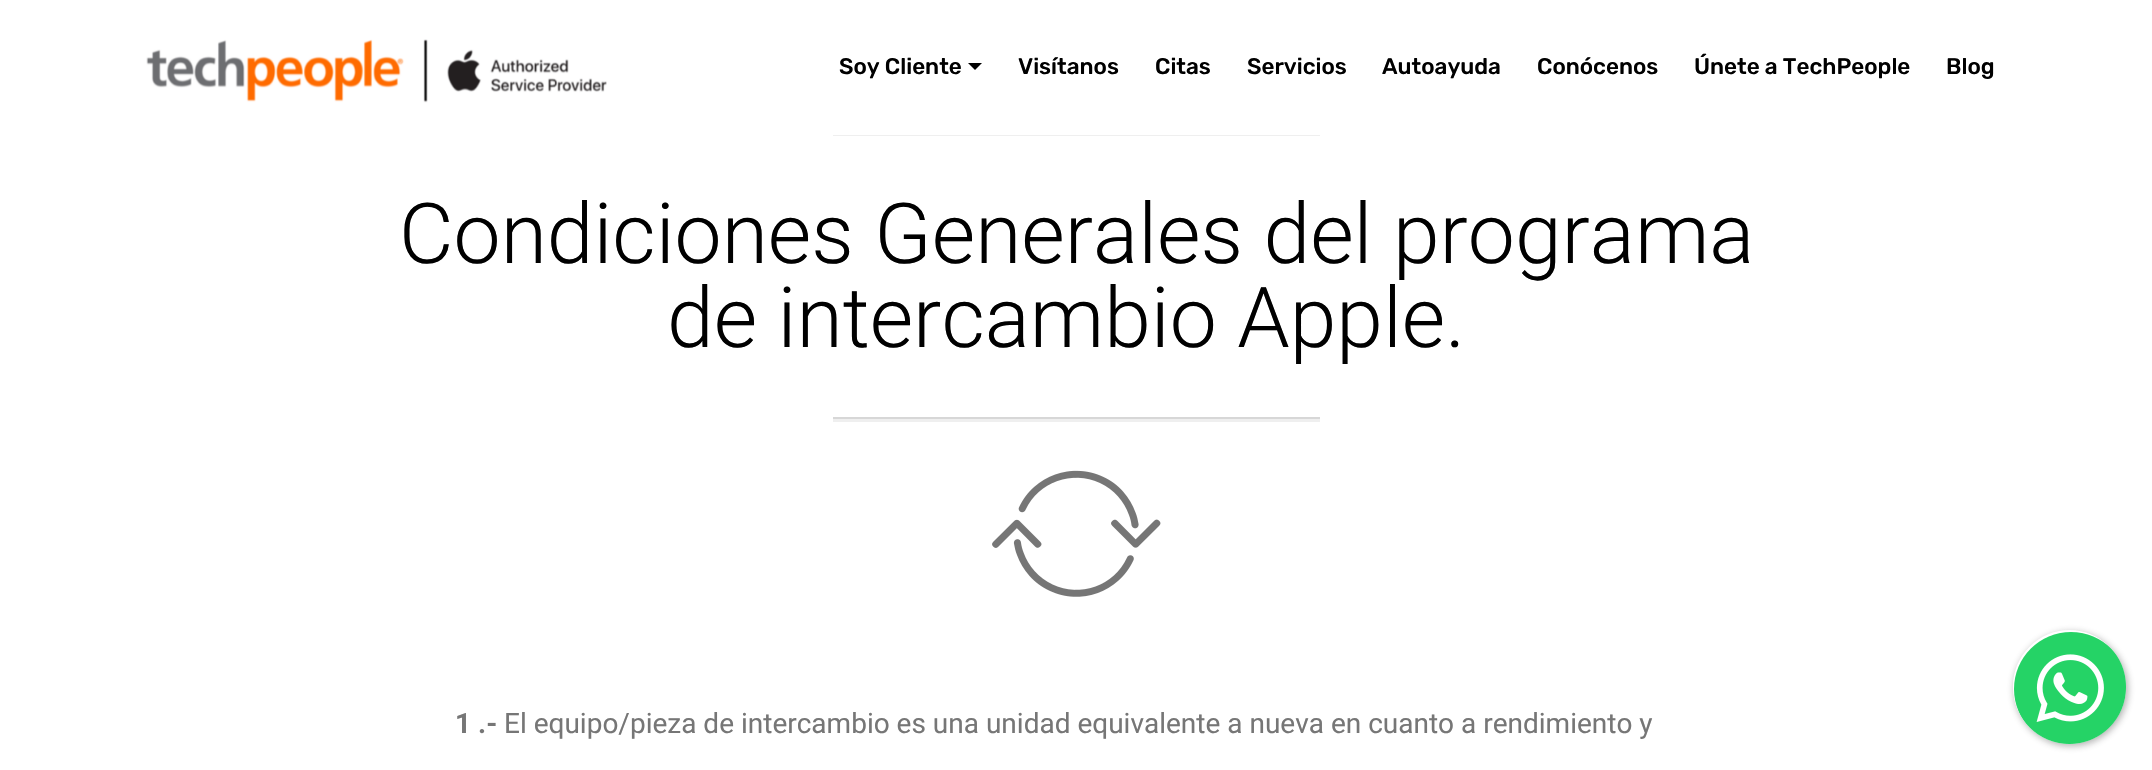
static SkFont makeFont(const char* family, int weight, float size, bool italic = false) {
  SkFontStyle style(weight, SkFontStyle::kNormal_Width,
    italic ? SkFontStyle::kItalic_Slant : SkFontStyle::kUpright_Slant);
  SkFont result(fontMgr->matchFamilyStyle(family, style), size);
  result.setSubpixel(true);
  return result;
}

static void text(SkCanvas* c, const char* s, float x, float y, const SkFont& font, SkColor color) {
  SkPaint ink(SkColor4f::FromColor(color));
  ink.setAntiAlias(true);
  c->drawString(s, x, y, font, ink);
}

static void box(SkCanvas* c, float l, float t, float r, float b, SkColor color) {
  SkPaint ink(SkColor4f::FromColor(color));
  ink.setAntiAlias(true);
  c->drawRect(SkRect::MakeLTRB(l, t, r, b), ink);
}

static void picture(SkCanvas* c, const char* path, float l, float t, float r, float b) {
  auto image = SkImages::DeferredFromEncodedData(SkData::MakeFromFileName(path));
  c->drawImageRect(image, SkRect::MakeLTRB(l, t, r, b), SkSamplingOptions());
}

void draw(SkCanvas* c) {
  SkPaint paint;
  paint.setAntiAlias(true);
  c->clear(0xffffffff);
  picture(c, "img_01.png", 146, 39, 607, 103);
  SkFont face1 = makeFont("Rubik", 500, 22.5f);
  text(c, "Soy Cliente", 839, 74, face1, 0xff000000);
  paint.setColor(0xff000000);
  c->drawPath(SkPathBuilder().moveTo(968, 63).lineTo(982, 63).lineTo(975, 70).close().detach(), paint);
  text(c, "Visítanos", 1018, 74, face1, 0xff000000);
  text(c, "Citas", 1155, 74, face1, 0xff000000);
  text(c, "Servicios", 1247, 74, face1, 0xff000000);
  text(c, "Autoayuda", 1382, 74, face1, 0xff000000);
  text(c, "Conócenos", 1537, 74, face1, 0xff000000);
  text(c, "Únete a TechPeople", 1694, 74, face1, 0xff000000);
  text(c, "Blog", 1946, 74, face1, 0xff000000);
  box(c, 833, 135, 1320, 136, 0xffefefef);
  SkFont face2 = makeFont("Roboto", 300, 84);
  text(c, "Condiciones Generales del programa", 399, 263, face2, 0xff000000);
  text(c, "de intercambio Apple.", 667, 347, face2, 0xff000000);
  box(c, 833, 419, 1320, 422, 0xffefefef);
  box(c, 833, 417, 1320, 419, 0xffd7d7d7);
  picture(c, "img_02.png", 992, 470, 1161, 597);
  SkFont face3 = makeFont("Roboto", 700, 28);
  text(c, "1 .-", 455, 733, face3, 0xff767676);
  SkFont face4 = makeFont("Roboto", 400, 28);
  text(c, "El equipo/pieza de intercambio es una unidad equivalente a nueva en cuanto a rendimiento y", 504, 733, face4, 0xff767676);
  c->save();
  c->clipPath(SkPathBuilder(SkPathFillType::kEvenOdd).moveTo(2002, 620).lineTo(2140, 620).lineTo(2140, 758).lineTo(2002, 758).close().moveTo(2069.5f, 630).cubicTo(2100.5f, 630, 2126, 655.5f, 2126, 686.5f).lineTo(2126, 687.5f).cubicTo(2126, 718.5f, 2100.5f, 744, 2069.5f, 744).cubicTo(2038.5f, 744, 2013, 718.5f, 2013, 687.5f).lineTo(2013, 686.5f).cubicTo(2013, 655.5f, 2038.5f, 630, 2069.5f, 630).close().detach(), true);
  paint.setColor(0x663c3c3c);
  paint.setMaskFilter(SkMaskFilter::MakeBlur(kNormal_SkBlurStyle, 3.5f));
  c->drawRoundRect(SkRect::MakeLTRB(2014, 632, 2128, 746), 57, 57, paint);
  paint.setMaskFilter(nullptr);
  c->restore();
  picture(c, "img_03.png", 2014, 632, 2126, 744);
}
